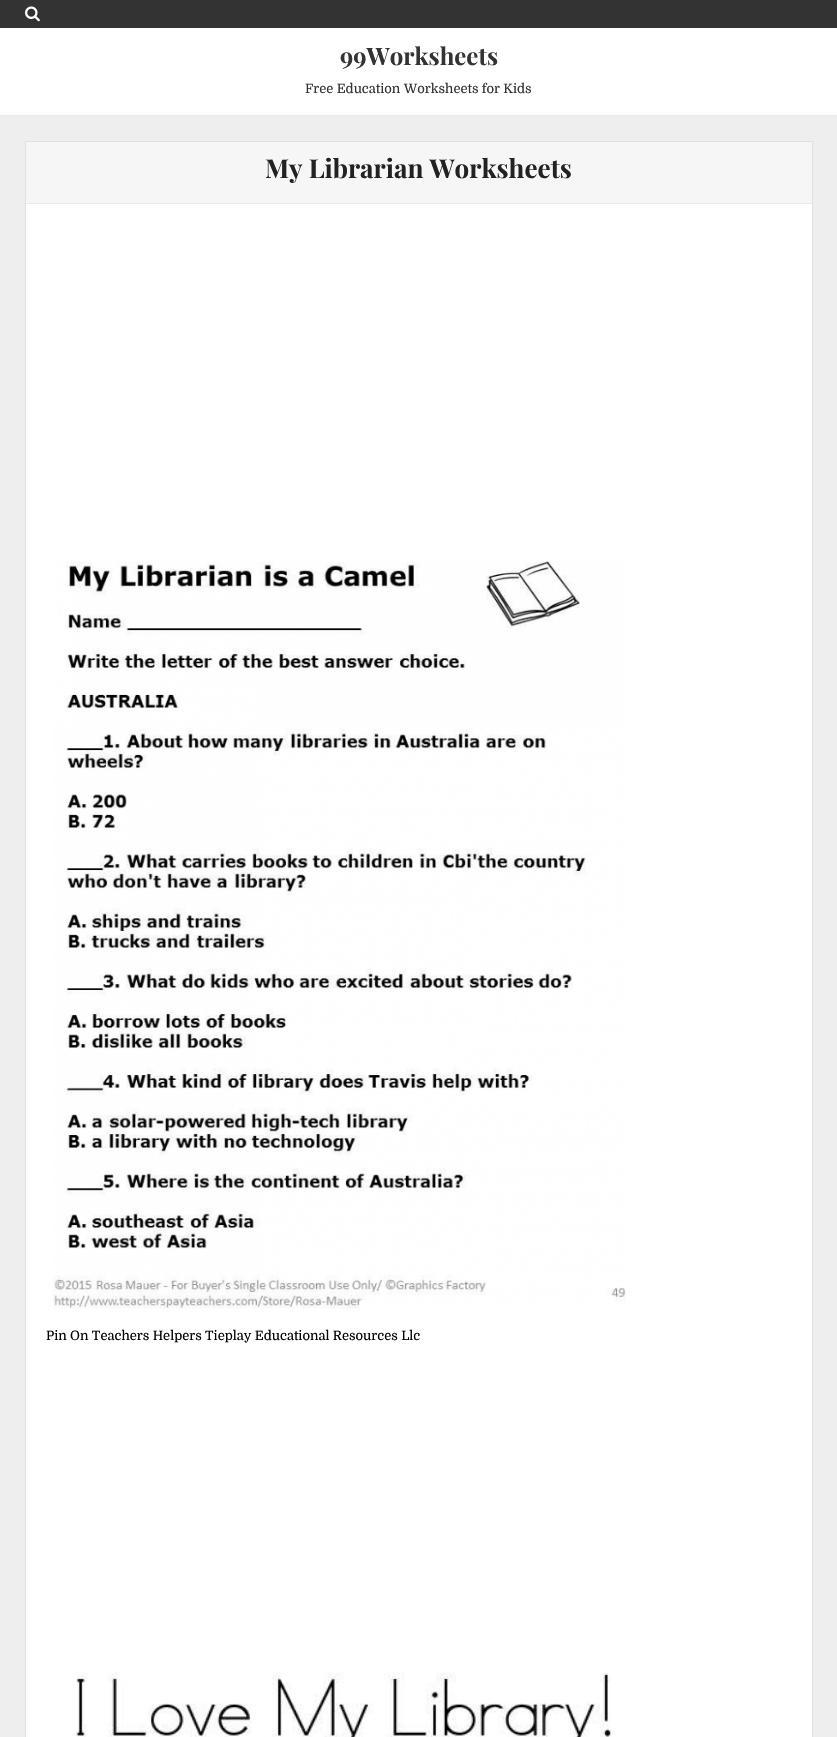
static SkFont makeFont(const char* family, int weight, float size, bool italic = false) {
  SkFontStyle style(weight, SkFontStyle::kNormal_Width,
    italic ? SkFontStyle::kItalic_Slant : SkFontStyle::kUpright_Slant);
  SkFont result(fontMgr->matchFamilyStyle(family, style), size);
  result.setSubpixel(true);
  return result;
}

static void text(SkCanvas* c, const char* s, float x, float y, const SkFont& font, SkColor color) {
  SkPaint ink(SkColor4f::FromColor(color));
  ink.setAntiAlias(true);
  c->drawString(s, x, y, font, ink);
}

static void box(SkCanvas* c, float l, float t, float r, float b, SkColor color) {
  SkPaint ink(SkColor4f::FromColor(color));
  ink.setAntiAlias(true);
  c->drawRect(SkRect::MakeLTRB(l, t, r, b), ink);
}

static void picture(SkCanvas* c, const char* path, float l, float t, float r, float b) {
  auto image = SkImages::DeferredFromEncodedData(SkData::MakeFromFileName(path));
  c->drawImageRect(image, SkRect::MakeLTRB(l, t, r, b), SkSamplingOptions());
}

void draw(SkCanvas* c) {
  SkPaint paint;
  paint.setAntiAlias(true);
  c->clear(0xffeeeeee);
  box(c, 0, 0, 837, 28, 0xff333333);
  picture(c, "img_01.png", 25, 6, 40, 22);
  box(c, 0, 28, 837, 115, 0xffffffff);
  box(c, 0, 115, 837, 116, 0xffebebec);
  SkFont face1 = makeFont("Playfair Display", 700, 24);
  text(c, "99Worksheets", 340, 65, face1, 0xff333333);
  SkFont face2 = makeFont("Domine", 400, 13);
  text(c, "Free Education Worksheets for Kids", 305, 93, face2, 0xff333333);
  box(c, 26, 204, 812, 1737, 0xffffffff);
  paint.setStyle(SkPaint::kStroke_Style);
  paint.setStrokeWidth(1);
  paint.setColor(0xffe0e0e0);
  c->drawRect(SkRect::MakeLTRB(25.5f, 141.5f, 812.5f, 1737.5f), paint);
  box(c, 26, 142, 812, 203, 0xfff6f6f6);
  box(c, 26, 203, 812, 204, 0xffe9e9e9);
  SkFont face3 = makeFont("Playfair Display", 700, 26);
  text(c, "My Librarian Worksheets", 265, 178, face3, 0xff222222);
  picture(c, "img_02.png", 53, 561, 626, 1309);
  text(c, "Pin On Teachers Helpers Tieplay Educational Resources Llc", 46, 1340, face2, 0xff000000);
  picture(c, "img_03.png", 76, 1672, 611, 1737);
}
